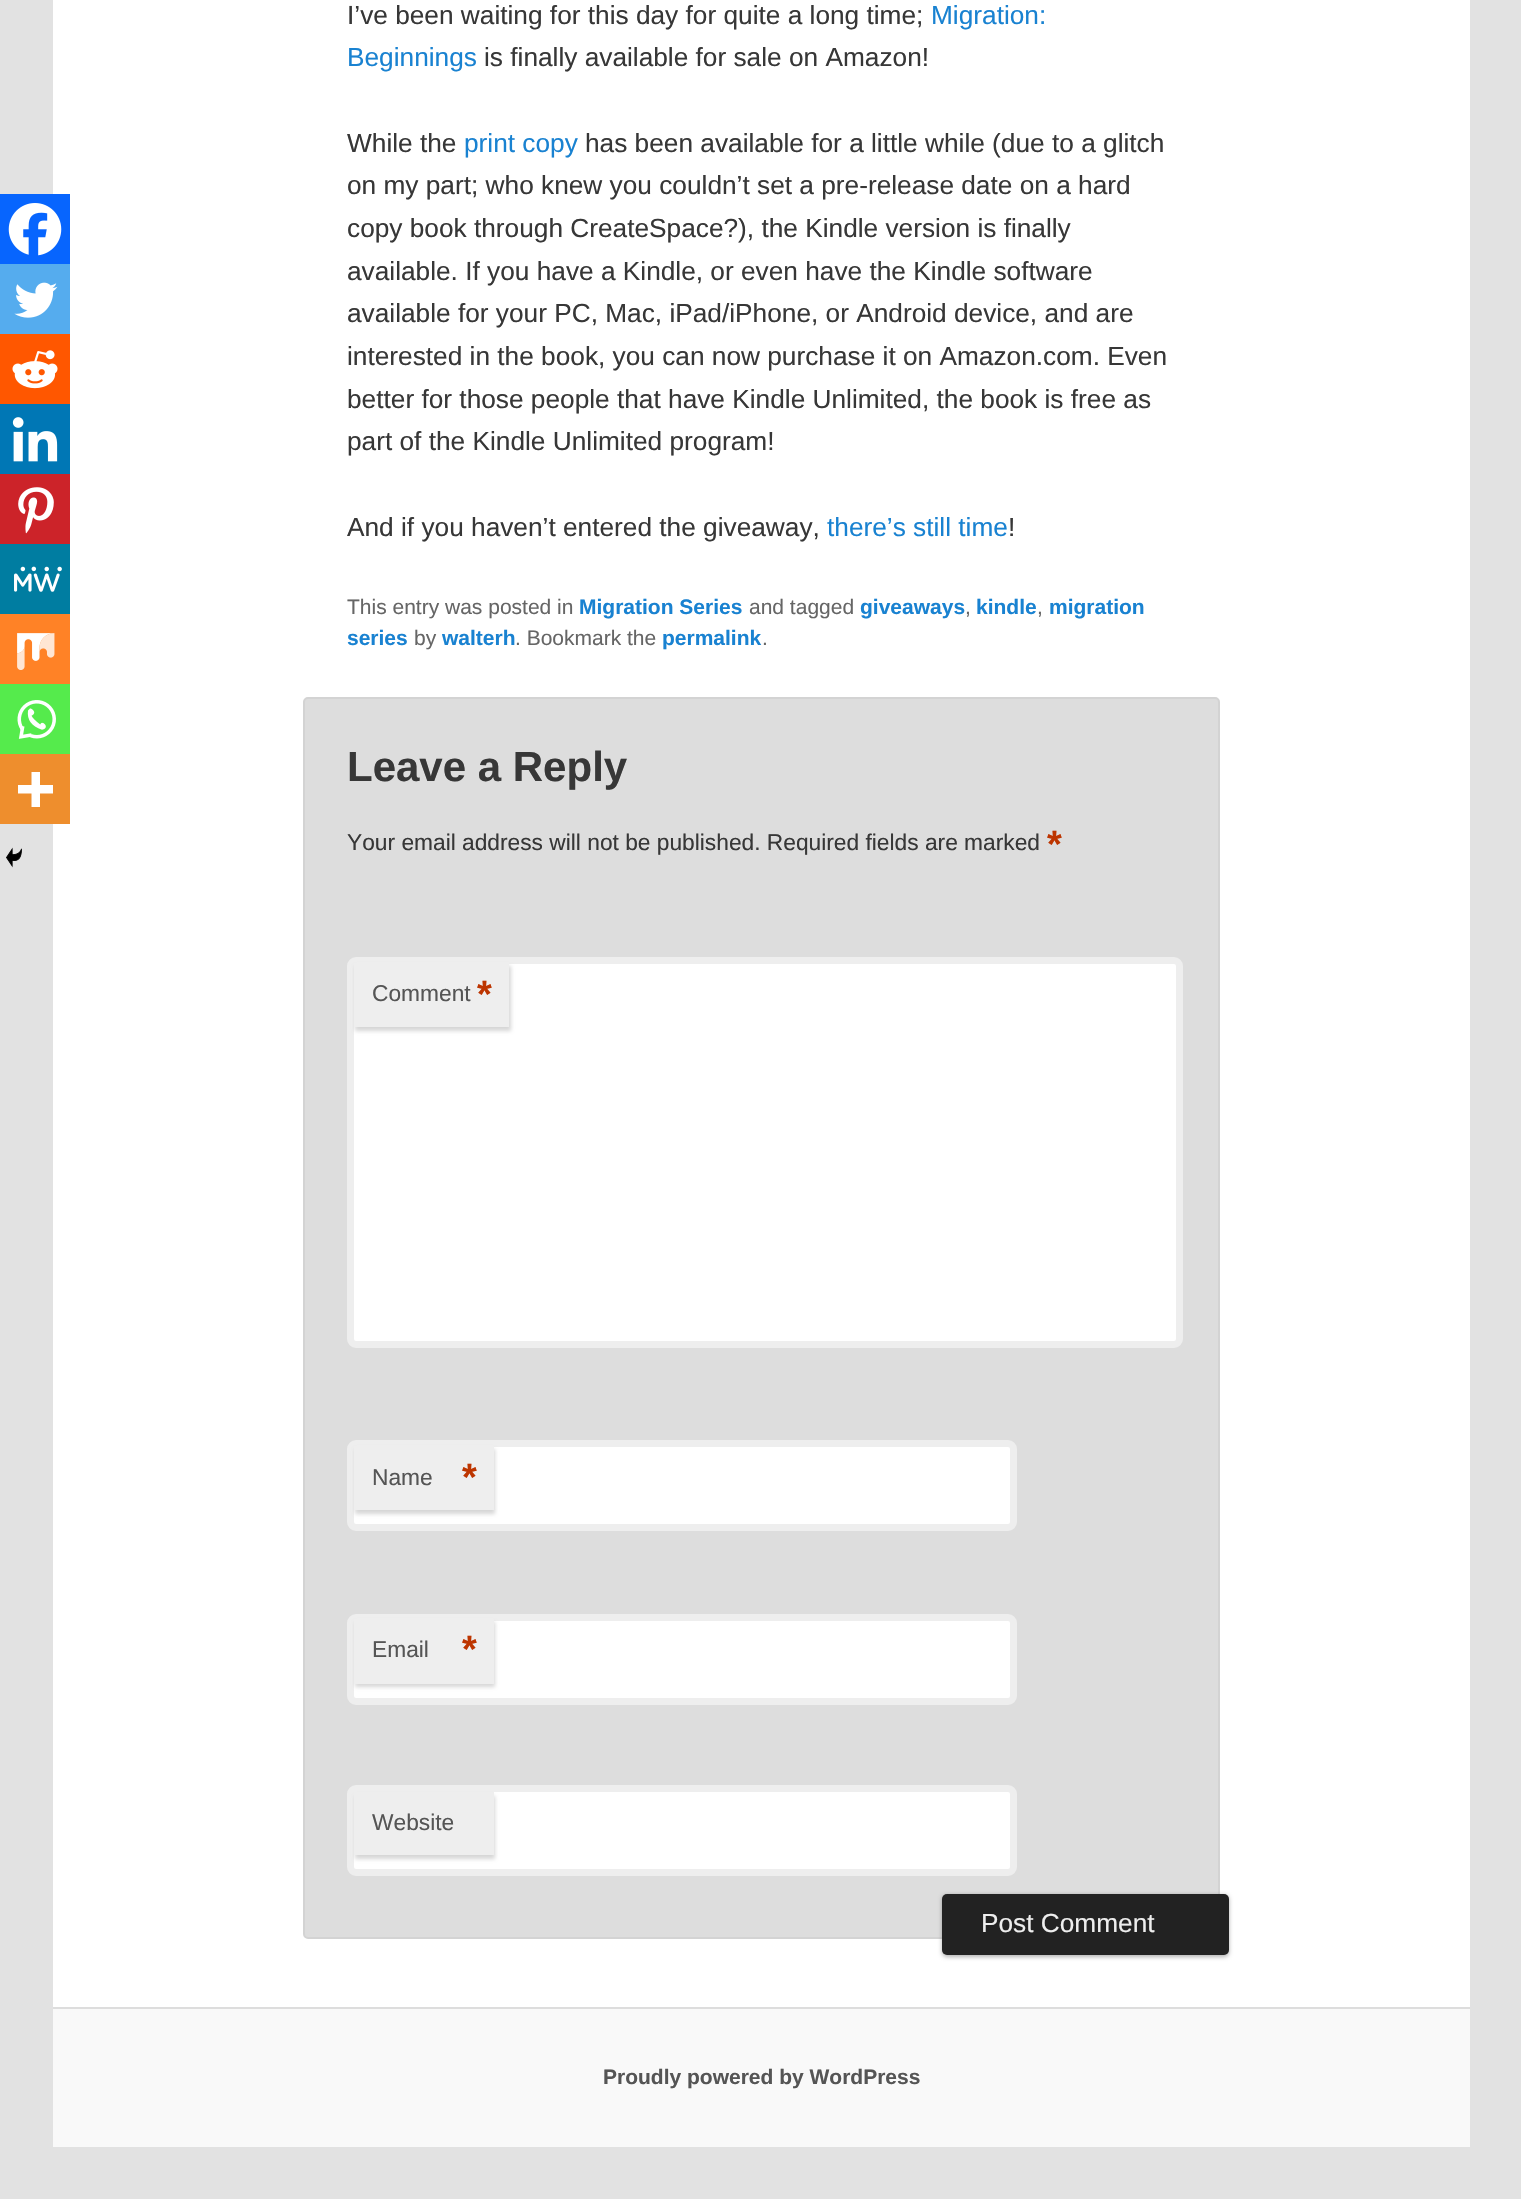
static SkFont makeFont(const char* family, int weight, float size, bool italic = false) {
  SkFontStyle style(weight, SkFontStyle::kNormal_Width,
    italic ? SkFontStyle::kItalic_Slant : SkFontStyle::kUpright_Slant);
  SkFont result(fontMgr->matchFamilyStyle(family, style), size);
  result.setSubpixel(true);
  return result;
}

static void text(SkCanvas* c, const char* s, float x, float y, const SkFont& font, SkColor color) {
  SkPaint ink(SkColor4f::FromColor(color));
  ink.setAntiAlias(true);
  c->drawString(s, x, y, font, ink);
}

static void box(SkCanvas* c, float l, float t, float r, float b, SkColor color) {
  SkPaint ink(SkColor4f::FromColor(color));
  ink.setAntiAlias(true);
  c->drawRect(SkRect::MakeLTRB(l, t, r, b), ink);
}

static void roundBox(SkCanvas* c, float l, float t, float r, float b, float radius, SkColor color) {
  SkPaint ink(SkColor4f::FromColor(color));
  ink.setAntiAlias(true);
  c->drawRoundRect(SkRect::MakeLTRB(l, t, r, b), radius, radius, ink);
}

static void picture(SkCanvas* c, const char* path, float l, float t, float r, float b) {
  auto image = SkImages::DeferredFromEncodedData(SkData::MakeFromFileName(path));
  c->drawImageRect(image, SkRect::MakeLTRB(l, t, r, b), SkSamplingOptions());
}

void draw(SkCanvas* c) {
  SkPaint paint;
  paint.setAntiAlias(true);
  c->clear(0xffe2e2e2);
  box(c, 53, 0, 1470, 2007, 0xffffffff);
  SkFont face1 = makeFont("Liberation Sans", 400, 26.25f);
  text(c, "I’ve been waiting for this day for quite a long time;", 347, 24, face1, 0xff373737);
  text(c, "Migration:", 931, 24, face1, 0xff1982d1);
  text(c, "Beginnings", 347, 66, face1, 0xff1982d1);
  text(c, "is finally available for sale on Amazon!", 484, 66, face1, 0xff373737);
  box(c, 0, 194, 70, 264, 0xff0765fe);
  picture(c, "img_01.png", 8, 203, 62, 256);
  box(c, 0, 264, 70, 334, 0xff55acee);
  picture(c, "img_02.png", 14, 282, 58, 318);
  box(c, 0, 334, 70, 404, 0xffff5700);
  picture(c, "img_03.png", 12, 350, 58, 389);
  box(c, 0, 404, 70, 474, 0xff0077b5);
  picture(c, "img_04.png", 12, 417, 58, 462);
  box(c, 0, 474, 70, 544, 0xffcc2329);
  picture(c, "img_05.png", 18, 487, 54, 534);
  box(c, 0, 544, 70, 614, 0xff007da1);
  picture(c, "img_06.png", 14, 566, 62, 592);
  box(c, 0, 614, 70, 684, 0xffff8226);
  picture(c, "img_07.png", 17, 633, 55, 670);
  box(c, 0, 684, 70, 754, 0xff55eb4c);
  picture(c, "img_08.png", 17, 700, 56, 739);
  box(c, 0, 754, 70, 824, 0xffee8e2d);
  paint.setColor(0xffffffff);
  c->drawPath(SkPathBuilder(SkPathFillType::kEvenOdd).moveTo(40, 785).lineTo(40, 772).lineTo(31.5f, 772).lineTo(31.5f, 785).lineTo(18, 785).lineTo(18, 793.5f).lineTo(31.5f, 793.5f).lineTo(31.5f, 807).lineTo(40, 807).lineTo(40, 793.5f).lineTo(53, 793.5f).lineTo(53, 785).close().detach(), paint);
  picture(c, "img_09.png", 6, 847, 22, 868);
  text(c, "While the", 347, 152, face1, 0xff373737);
  text(c, "print copy", 464, 152, face1, 0xff1982d1);
  text(c, "has been available for a little while (due to a glitch", 585, 152, face1, 0xff373737);
  text(c, "on my part; who knew you couldn’t set a pre-release date on a hard", 347, 194, face1, 0xff373737);
  text(c, "copy book through CreateSpace?), the Kindle version is finally", 347, 237, face1, 0xff373737);
  text(c, "available. If you have a Kindle, or even have the Kindle software", 347, 280, face1, 0xff373737);
  text(c, "available for your PC, Mac, iPad/iPhone, or Android device, and are", 347, 322, face1, 0xff373737);
  text(c, "interested in the book, you can now purchase it on Amazon.com. Even", 347, 365, face1, 0xff373737);
  text(c, "better for those people that have Kindle Unlimited, the book is free as", 347, 408, face1, 0xff373737);
  text(c, "part of the Kindle Unlimited program!", 347, 450, face1, 0xff373737);
  text(c, "And if you haven’t entered the giveaway,", 347, 536, face1, 0xff373737);
  text(c, "there’s still time", 827, 536, face1, 0xff1982d1);
  text(c, "!", 1008, 536, face1, 0xff373737);
  SkFont face2 = makeFont("Liberation Sans", 400, 21);
  text(c, "This entry was posted in", 347, 614, face2, 0xff666666);
  SkFont face3 = makeFont("Liberation Sans", 700, 21);
  text(c, "Migration Series", 579, 614, face3, 0xff1982d1);
  text(c, "and tagged", 749, 614, face2, 0xff666666);
  text(c, "giveaways", 860, 614, face3, 0xff1982d1);
  text(c, ",", 965, 614, face2, 0xff666666);
  text(c, "kindle", 976, 614, face3, 0xff1982d1);
  text(c, ",", 1037, 614, face2, 0xff666666);
  text(c, "migration", 1049, 614, face3, 0xff1982d1);
  text(c, "series", 347, 645, face3, 0xff1982d1);
  text(c, "by", 414, 645, face2, 0xff666666);
  text(c, "walterh", 442, 645, face3, 0xff1982d1);
  text(c, ". Bookmark the", 515, 645, face2, 0xff666666);
  text(c, "permalink", 662, 645, face3, 0xff1982d1);
  text(c, ".", 762, 645, face2, 0xff666666);
  paint.setColor(0xffdddddd);
  c->drawRoundRect(SkRect::MakeLTRB(304, 698, 1219, 1938), 4, 4, paint);
  paint.setStyle(SkPaint::kStroke_Style);
  paint.setStrokeWidth(2);
  paint.setColor(0xffd3d3d3);
  c->drawRoundRect(SkRect::MakeLTRB(304, 698, 1219, 1938), 4, 4, paint);
  SkFont face4 = makeFont("Liberation Sans", 700, 42);
  text(c, "Leave a Reply", 347, 781, face4, 0xff373737);
  SkFont face5 = makeFont("Liberation Sans", 400, 22.75f);
  text(c, "Your email address will not be published. Required fields are marked", 347, 850, face5, 0xff373737);
  SkFont face6 = makeFont("Liberation Sans", 700, 38);
  text(c, "*", 1047, 857, face6, 0xffbd3500);
  paint.setStyle(SkPaint::kFill_Style);
  paint.setColor(0xffffffff);
  c->drawRoundRect(SkRect::MakeLTRB(350.5f, 960.5f, 1179.5f, 1344.5f), 5.5f, 5.5f, paint);
  paint.setStyle(SkPaint::kStroke_Style);
  paint.setStrokeWidth(7);
  paint.setColor(0xffeeeeee);
  c->drawRoundRect(SkRect::MakeLTRB(350.5f, 960.5f, 1179.5f, 1344.5f), 5.5f, 5.5f, paint);
  paint.setStyle(SkPaint::kFill_Style);
  paint.setColor(0xcccccccc);
  paint.setMaskFilter(SkMaskFilter::MakeBlur(kNormal_SkBlurStyle, 2));
  c->drawRect(SkRect::MakeLTRB(355, 966, 511, 1031), paint);
  paint.setMaskFilter(nullptr);
  box(c, 354, 963, 509, 1027, 0xffeeeeee);
  text(c, "Comment", 372, 1001, face5, 0xff555555);
  text(c, "*", 477, 1007, face6, 0xffbd3500);
  paint.setColor(0xffffffff);
  c->drawRoundRect(SkRect::MakeLTRB(350.5f, 1443.5f, 1013.5f, 1527.5f), 5.5f, 5.5f, paint);
  paint.setStyle(SkPaint::kStroke_Style);
  paint.setColor(0xffeeeeee);
  c->drawRoundRect(SkRect::MakeLTRB(350.5f, 1443.5f, 1013.5f, 1527.5f), 5.5f, 5.5f, paint);
  paint.setStyle(SkPaint::kFill_Style);
  paint.setColor(0xcccccccc);
  paint.setMaskFilter(SkMaskFilter::MakeBlur(kNormal_SkBlurStyle, 2));
  c->drawRect(SkRect::MakeLTRB(355, 1449, 495, 1514), paint);
  paint.setMaskFilter(nullptr);
  box(c, 354, 1446, 494, 1510, 0xffeeeeee);
  text(c, "Name", 372, 1485, face5, 0xff555555);
  text(c, "*", 462, 1490, face6, 0xffbd3500);
  paint.setColor(0xffffffff);
  c->drawRoundRect(SkRect::MakeLTRB(350.5f, 1617.5f, 1013.5f, 1701.5f), 5.5f, 5.5f, paint);
  paint.setStyle(SkPaint::kStroke_Style);
  paint.setColor(0xffeeeeee);
  c->drawRoundRect(SkRect::MakeLTRB(350.5f, 1617.5f, 1013.5f, 1701.5f), 5.5f, 5.5f, paint);
  paint.setStyle(SkPaint::kFill_Style);
  paint.setColor(0xcccccccc);
  paint.setMaskFilter(SkMaskFilter::MakeBlur(kNormal_SkBlurStyle, 2));
  c->drawRect(SkRect::MakeLTRB(355, 1622, 495, 1687), paint);
  paint.setMaskFilter(nullptr);
  box(c, 354, 1619, 494, 1684, 0xffeeeeee);
  text(c, "Email", 372, 1657, face5, 0xff555555);
  text(c, "*", 462, 1662, face6, 0xffbd3500);
  paint.setColor(0xffffffff);
  c->drawRoundRect(SkRect::MakeLTRB(350.5f, 1788.5f, 1013.5f, 1872.5f), 5.5f, 5.5f, paint);
  paint.setStyle(SkPaint::kStroke_Style);
  paint.setColor(0xffeeeeee);
  c->drawRoundRect(SkRect::MakeLTRB(350.5f, 1788.5f, 1013.5f, 1872.5f), 5.5f, 5.5f, paint);
  paint.setStyle(SkPaint::kFill_Style);
  paint.setColor(0xcccccccc);
  paint.setMaskFilter(SkMaskFilter::MakeBlur(kNormal_SkBlurStyle, 2));
  c->drawRect(SkRect::MakeLTRB(355, 1796, 495, 1859), paint);
  paint.setMaskFilter(nullptr);
  box(c, 354, 1792, 494, 1855, 0xffeeeeee);
  text(c, "Website", 372, 1830, face5, 0xff555555);
  paint.setColor(0x4d000000);
  paint.setMaskFilter(SkMaskFilter::MakeBlur(kNormal_SkBlurStyle, 2));
  c->drawRoundRect(SkRect::MakeLTRB(942, 1895, 1229, 1957), 5, 5, paint);
  paint.setMaskFilter(nullptr);
  roundBox(c, 942, 1894, 1229, 1955, 5, 0xff222222);
  text(c, "Post Comment", 981, 1932, face1, 0xffeeeeee);
  box(c, 53, 2009, 1470, 2147, 0xfff9f9f9);
  box(c, 53, 2007, 1470, 2009, 0xffdddddd);
  text(c, "Proudly powered by WordPress", 603, 2084, face3, 0xff555555);
}
